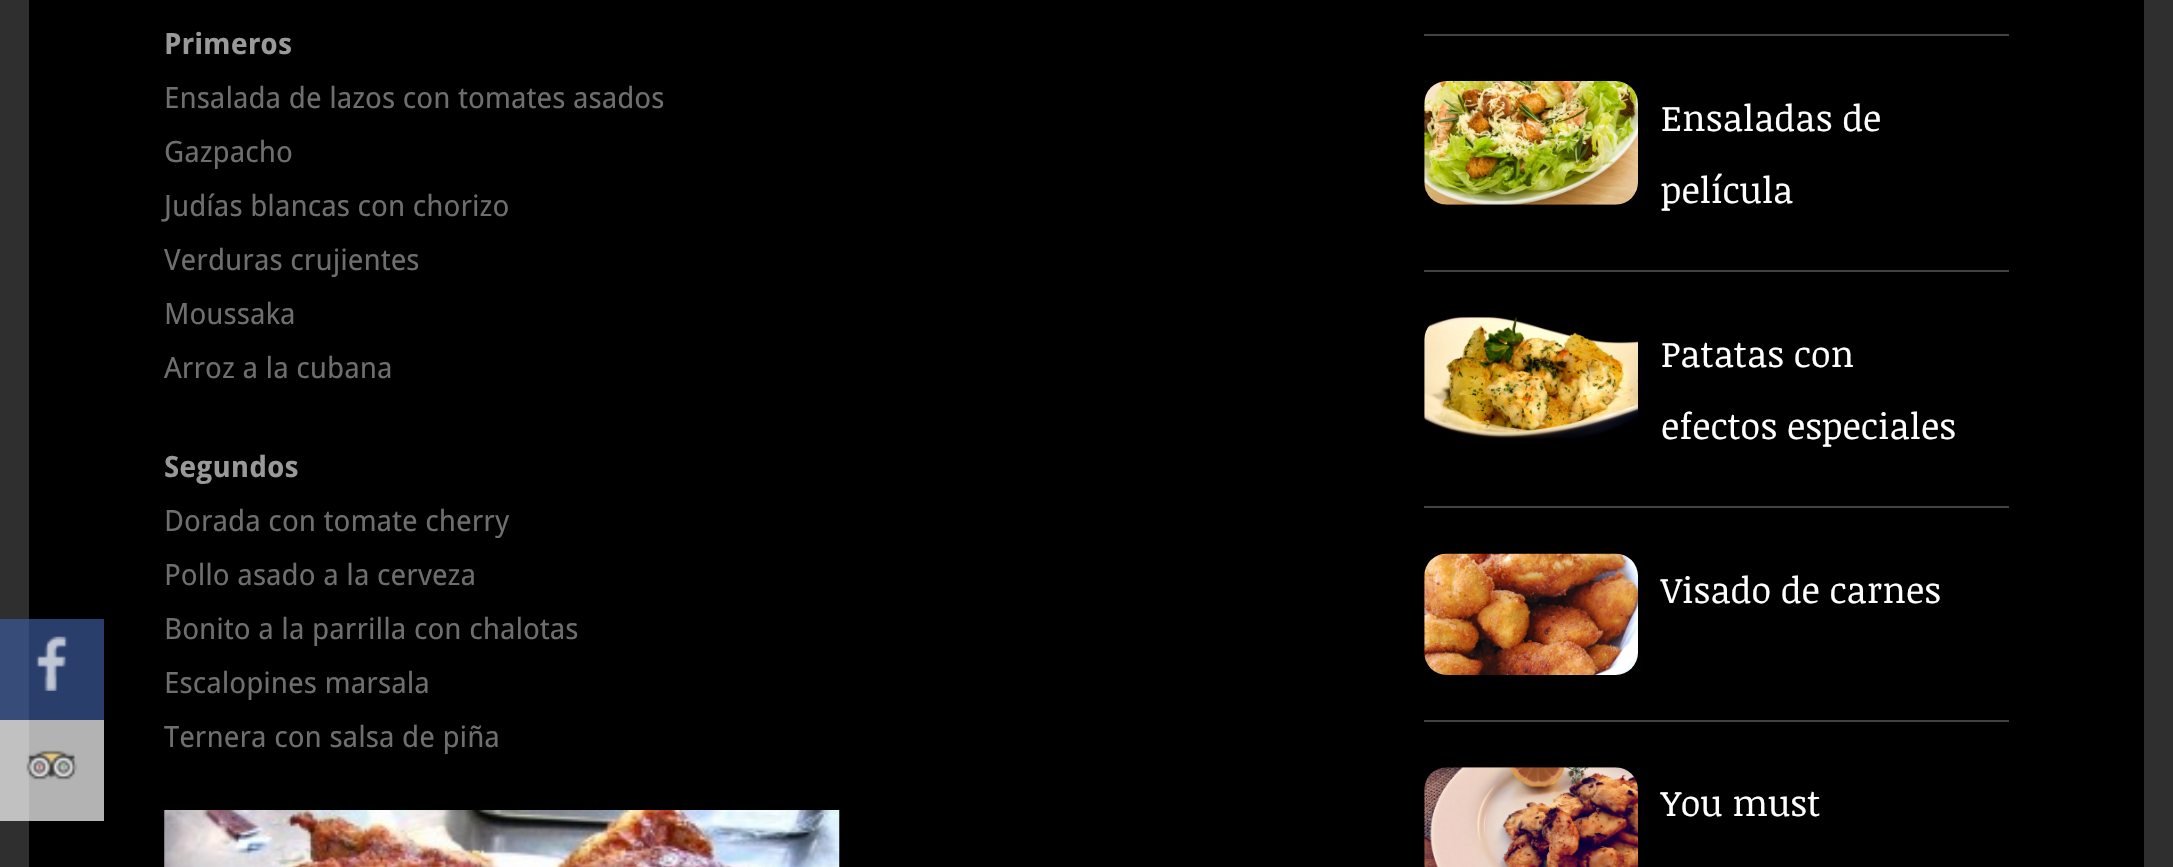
static SkFont makeFont(const char* family, int weight, float size, bool italic = false) {
  SkFontStyle style(weight, SkFontStyle::kNormal_Width,
    italic ? SkFontStyle::kItalic_Slant : SkFontStyle::kUpright_Slant);
  SkFont result(fontMgr->matchFamilyStyle(family, style), size);
  result.setSubpixel(true);
  return result;
}

static void text(SkCanvas* c, const char* s, float x, float y, const SkFont& font, SkColor color) {
  SkPaint ink(SkColor4f::FromColor(color));
  ink.setAntiAlias(true);
  c->drawString(s, x, y, font, ink);
}

static void box(SkCanvas* c, float l, float t, float r, float b, SkColor color) {
  SkPaint ink(SkColor4f::FromColor(color));
  ink.setAntiAlias(true);
  c->drawRect(SkRect::MakeLTRB(l, t, r, b), ink);
}

static void picture(SkCanvas* c, const char* path, float l, float t, float r, float b) {
  auto image = SkImages::DeferredFromEncodedData(SkData::MakeFromFileName(path));
  c->drawImageRect(image, SkRect::MakeLTRB(l, t, r, b), SkSamplingOptions());
}

void draw(SkCanvas* c) {
  SkPaint paint;
  paint.setAntiAlias(true);
  c->clear(0xff2f2f2f);
  box(c, 0, 720, 29, 821, 0xffc1c1c1);
  box(c, 0, 619, 29, 720, 0xff374c79);
  box(c, 29, 0, 2144, 867, 0xff000000);
  box(c, 29, 619, 104, 720, 0xff293e6a);
  picture(c, "img_01.png", 36, 636, 68, 691);
  box(c, 29, 720, 104, 821, 0xffb3b3b3);
  picture(c, "img_02.png", 26, 750, 78, 780);
  SkFont face1 = makeFont("Droid Sans", 700, 29.25f);
  text(c, "Primeros", 164, 54, face1, 0xff999999);
  SkFont face2 = makeFont("Droid Sans", 400, 29.25f);
  text(c, "Ensalada de lazos con tomates asados", 164, 108, face2, 0xff6e6e6e);
  text(c, "Gazpacho", 164, 162, face2, 0xff6e6e6e);
  text(c, "Judías blancas con chorizo", 164, 216, face2, 0xff6e6e6e);
  text(c, "Verduras crujientes", 164, 270, face2, 0xff6e6e6e);
  text(c, "Moussaka", 164, 324, face2, 0xff6e6e6e);
  text(c, "Arroz a la cubana", 164, 378, face2, 0xff6e6e6e);
  text(c, "Segundos", 164, 477, face1, 0xff999999);
  text(c, "Dorada con tomate cherry", 164, 531, face2, 0xff6e6e6e);
  text(c, "Pollo asado a la cerveza", 164, 585, face2, 0xff6e6e6e);
  text(c, "Bonito a la parrilla con chalotas", 164, 639, face2, 0xff6e6e6e);
  text(c, "Escalopines marsala", 164, 693, face2, 0xff6e6e6e);
  text(c, "Ternera con salsa de piña", 164, 747, face2, 0xff6e6e6e);
  picture(c, "img_03.png", 164, 810, 840, 867);
  box(c, 1424, 34, 2009, 36, 0xff424242);
  box(c, 1424, 270, 2009, 272, 0xff424242);
  picture(c, "img_04.png", 1424, 81, 1638, 205);
  SkFont face3 = makeFont("Noticia Text", 400, 36);
  text(c, "Ensaladas de", 1661, 131, face3, 0xffffffff);
  text(c, "película", 1661, 203, face3, 0xffffffff);
  box(c, 1424, 506, 2009, 508, 0xff424242);
  picture(c, "img_05.png", 1424, 317, 1638, 439);
  text(c, "Patatas con", 1661, 367, face3, 0xffffffff);
  text(c, "efectos especiales", 1661, 439, face3, 0xffffffff);
  box(c, 1424, 720, 2009, 722, 0xff424242);
  picture(c, "img_06.png", 1424, 553, 1638, 675);
  text(c, "Visado de carnes", 1661, 603, face3, 0xffffffff);
  picture(c, "img_07.png", 1424, 767, 1638, 867);
  text(c, "You must", 1661, 816, face3, 0xffffffff);
}
